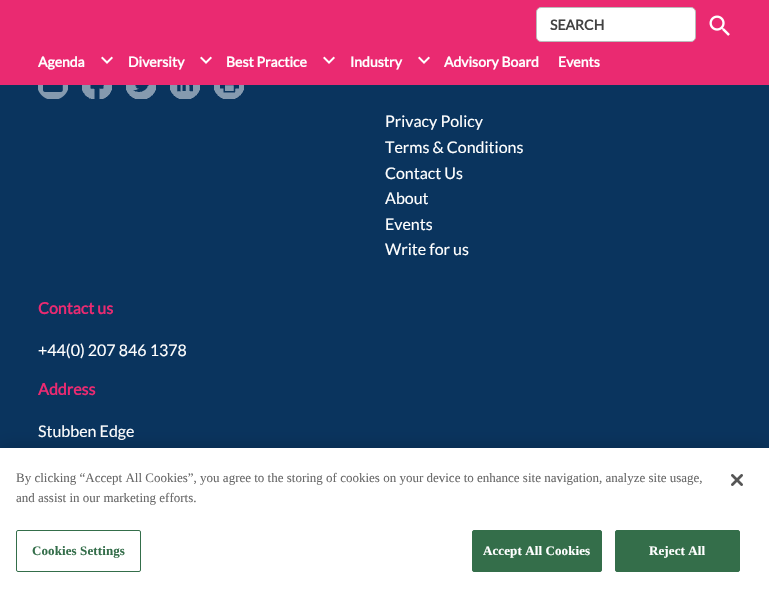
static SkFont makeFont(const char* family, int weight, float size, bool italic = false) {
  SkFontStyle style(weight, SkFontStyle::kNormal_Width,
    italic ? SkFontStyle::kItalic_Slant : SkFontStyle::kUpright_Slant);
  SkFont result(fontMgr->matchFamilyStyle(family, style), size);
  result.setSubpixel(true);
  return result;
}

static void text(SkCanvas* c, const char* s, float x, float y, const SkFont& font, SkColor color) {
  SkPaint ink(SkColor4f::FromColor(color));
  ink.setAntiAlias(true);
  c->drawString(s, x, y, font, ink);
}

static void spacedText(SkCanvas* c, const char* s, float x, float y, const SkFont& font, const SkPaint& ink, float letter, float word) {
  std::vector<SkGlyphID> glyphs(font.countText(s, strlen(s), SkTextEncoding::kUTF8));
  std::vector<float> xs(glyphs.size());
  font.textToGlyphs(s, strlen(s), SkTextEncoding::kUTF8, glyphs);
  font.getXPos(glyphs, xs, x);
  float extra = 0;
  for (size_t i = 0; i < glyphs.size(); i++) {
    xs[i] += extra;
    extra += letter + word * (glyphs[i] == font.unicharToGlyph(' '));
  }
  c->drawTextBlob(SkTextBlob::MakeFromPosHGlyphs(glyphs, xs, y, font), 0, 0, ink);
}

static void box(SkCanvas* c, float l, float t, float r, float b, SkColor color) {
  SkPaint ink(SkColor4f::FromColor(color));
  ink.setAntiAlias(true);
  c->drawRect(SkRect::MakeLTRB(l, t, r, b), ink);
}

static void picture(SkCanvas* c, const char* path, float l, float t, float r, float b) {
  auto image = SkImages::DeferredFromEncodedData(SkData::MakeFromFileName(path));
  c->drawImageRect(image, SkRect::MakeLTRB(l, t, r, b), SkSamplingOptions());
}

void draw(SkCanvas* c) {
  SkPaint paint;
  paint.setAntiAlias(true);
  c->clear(0xff0a345e);
  box(c, 0, 0, 38, 85, 0xffea2a71);
  box(c, 38, 0, 769, 85, 0xffea2a71);
  paint.setColor(0xffffffff);
  c->drawRoundRect(SkRect::MakeLTRB(536.5f, 7.5f, 695.5f, 41.5f), 4.5f, 4.5f, paint);
  paint.setStyle(SkPaint::kStroke_Style);
  paint.setStrokeWidth(1);
  paint.setColor(0xffbbbbbb);
  c->drawRoundRect(SkRect::MakeLTRB(536.5f, 7.5f, 695.5f, 41.5f), 4.5f, 4.5f, paint);
  SkFont face1 = makeFont("Lato", 700, 14);
  text(c, "SEARCH", 550, 30, face1, 0xff424242);
  picture(c, "img_01.png", 709, 15, 730, 36);
  text(c, "Agenda", 38, 67, face1, 0xffffffff);
  picture(c, "img_02.png", 101, 56, 113, 64);
  text(c, "Diversity", 128, 67, face1, 0xffffffff);
  picture(c, "img_02.png", 200, 56, 212, 64);
  text(c, "Best Practice", 226, 67, face1, 0xffffffff);
  picture(c, "img_02.png", 323, 56, 335, 64);
  text(c, "Industry", 350, 67, face1, 0xffffffff);
  picture(c, "img_02.png", 418, 56, 430, 64);
  text(c, "Advisory Board", 444, 67, face1, 0xffffffff);
  text(c, "Events", 558, 67, face1, 0xffffffff);
  picture(c, "img_03.png", 38, 85, 68, 99);
  picture(c, "img_04.png", 82, 85, 112, 99);
  picture(c, "img_05.png", 126, 85, 156, 99);
  picture(c, "img_06.png", 170, 85, 200, 99);
  picture(c, "img_07.png", 214, 85, 244, 99);
  SkFont face2 = makeFont("Lato", 400, 16);
  text(c, "Privacy Policy", 385, 127, face2, 0xffffffff);
  text(c, "Terms & Conditions", 385, 153, face2, 0xffffffff);
  text(c, "Contact Us", 385, 179, face2, 0xffffffff);
  text(c, "About", 385, 204, face2, 0xffffffff);
  text(c, "Events", 385, 230, face2, 0xffffffff);
  text(c, "Write for us", 385, 255, face2, 0xffffffff);
  SkFont face3 = makeFont("Lato", 700, 16);
  text(c, "Contact us", 38, 314, face3, 0xffea2a71);
  text(c, "+44(0) 207 846 1378", 38, 356, face2, 0xffffffff);
  text(c, "Address", 38, 395, face3, 0xffea2a71);
  text(c, "Stubben Edge", 38, 437, face2, 0xffffffff);
  paint.setStyle(SkPaint::kFill_Style);
  paint.setColor(0x33000000);
  paint.setMaskFilter(SkMaskFilter::MakeBlur(kNormal_SkBlurStyle, 9));
  c->drawRect(SkRect::MakeLTRB(0, 448, 769, 596), paint);
  paint.setMaskFilter(nullptr);
  box(c, 0, 448, 769, 596, 0xffffffff);
  SkFont face4 = makeFont("Liberation Serif", 400, 13);
  text(c, "By clicking “Accept All Cookies”, you agree to the storing of cookies on your device to enhance site navigation, analyze site usage,", 16, 482, face4, 0xff696969);
  text(c, "and assist in our marketing efforts.", 16, 502, face4, 0xff696969);
  paint.setStyle(SkPaint::kStroke_Style);
  paint.setColor(0xff346e4a);
  c->drawRoundRect(SkRect::MakeLTRB(16.5f, 530.5f, 140.5f, 571.5f), 1.5f, 1.5f, paint);
  SkFont face5 = makeFont("Liberation Serif", 700, 13);
  paint.setStyle(SkPaint::kFill_Style);
  spacedText(c, "Cookies Settings", 32, 555, face5, paint, 0.1f, 0);
  c->drawRoundRect(SkRect::MakeLTRB(472.5f, 530.5f, 601.5f, 571.5f), 1.5f, 1.5f, paint);
  paint.setStyle(SkPaint::kStroke_Style);
  c->drawRoundRect(SkRect::MakeLTRB(472.5f, 530.5f, 601.5f, 571.5f), 1.5f, 1.5f, paint);
  paint.setStyle(SkPaint::kFill_Style);
  paint.setColor(0xffffffff);
  spacedText(c, "Accept All Cookies", 483, 555, face5, paint, 0.1f, 0);
  paint.setColor(0xff346e4a);
  c->drawRoundRect(SkRect::MakeLTRB(615.5f, 530.5f, 739.5f, 571.5f), 1.5f, 1.5f, paint);
  paint.setStyle(SkPaint::kStroke_Style);
  c->drawRoundRect(SkRect::MakeLTRB(615.5f, 530.5f, 739.5f, 571.5f), 1.5f, 1.5f, paint);
  paint.setStyle(SkPaint::kFill_Style);
  paint.setColor(0xffffffff);
  spacedText(c, "Reject All", 649, 555, face5, paint, 0.1f, 0);
  picture(c, "img_08.png", 731, 474, 743, 486);
}
